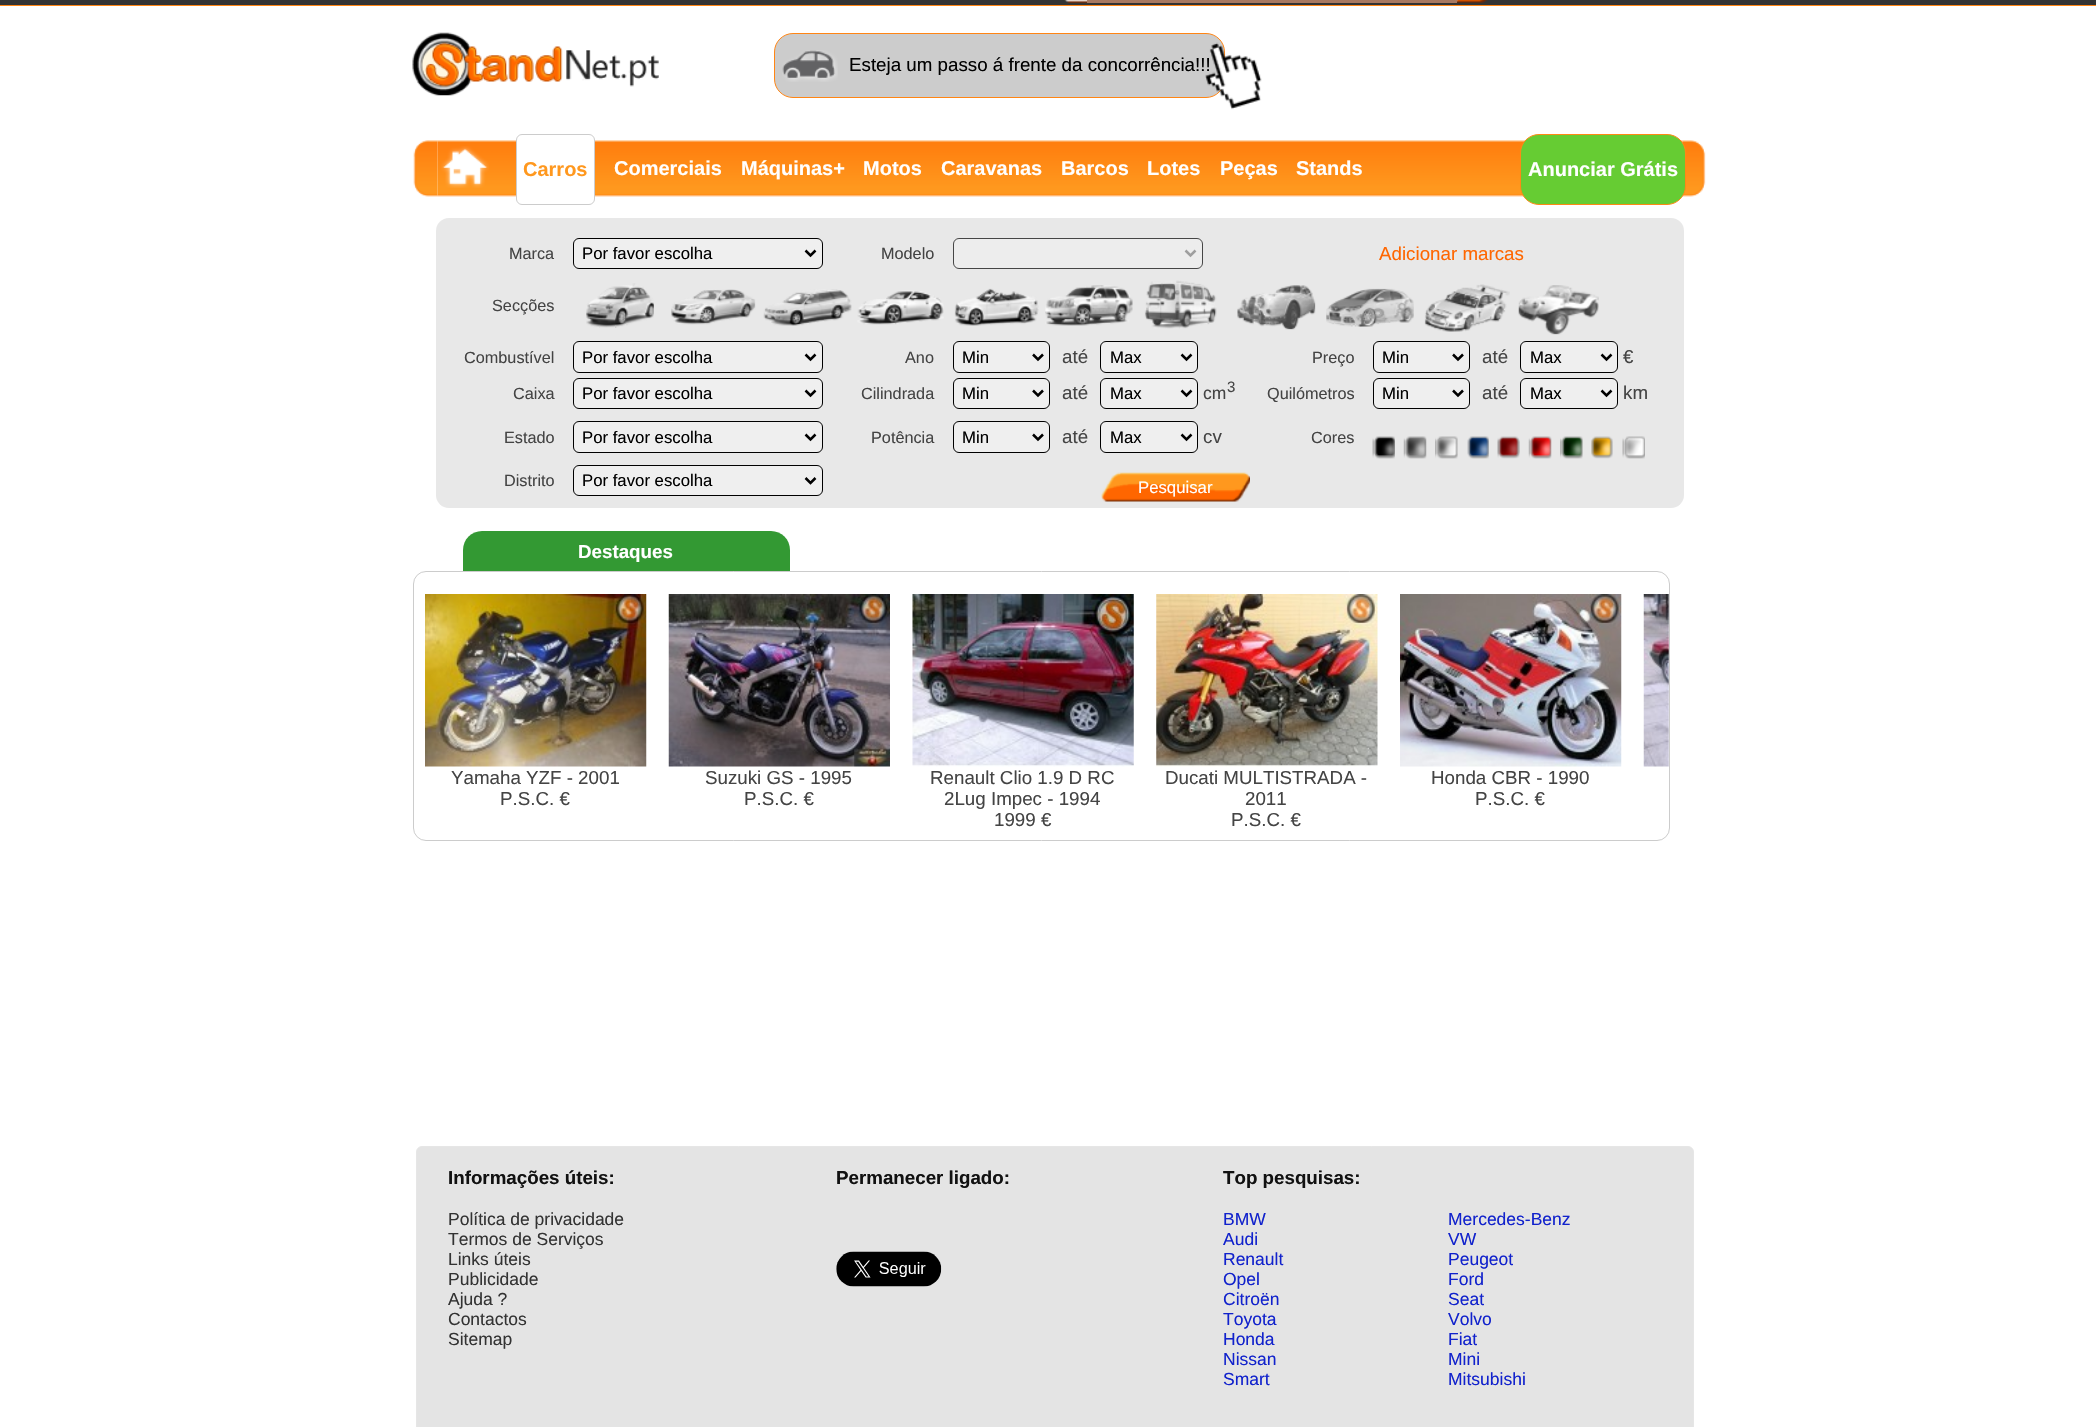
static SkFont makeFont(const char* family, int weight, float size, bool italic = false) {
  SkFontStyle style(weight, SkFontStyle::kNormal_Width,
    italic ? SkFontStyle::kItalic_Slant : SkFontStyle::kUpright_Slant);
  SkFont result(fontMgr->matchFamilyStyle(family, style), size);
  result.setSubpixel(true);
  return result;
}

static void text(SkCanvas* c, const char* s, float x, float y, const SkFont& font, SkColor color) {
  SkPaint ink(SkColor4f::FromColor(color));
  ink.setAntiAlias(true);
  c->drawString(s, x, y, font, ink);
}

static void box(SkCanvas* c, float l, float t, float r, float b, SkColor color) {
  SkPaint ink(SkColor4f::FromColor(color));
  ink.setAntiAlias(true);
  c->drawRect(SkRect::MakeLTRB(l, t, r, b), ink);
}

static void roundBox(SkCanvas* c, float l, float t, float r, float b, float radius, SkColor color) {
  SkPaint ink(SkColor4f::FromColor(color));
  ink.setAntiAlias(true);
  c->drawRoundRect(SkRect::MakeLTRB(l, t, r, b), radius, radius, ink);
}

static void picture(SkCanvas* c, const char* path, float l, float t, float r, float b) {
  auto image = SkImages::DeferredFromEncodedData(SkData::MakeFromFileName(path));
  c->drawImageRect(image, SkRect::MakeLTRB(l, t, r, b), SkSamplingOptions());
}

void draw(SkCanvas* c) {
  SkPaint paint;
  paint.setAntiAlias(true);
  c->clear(0xffffffff);
  box(c, 0, 0, 2096, 5, 0xff333333);
  box(c, 0, 5, 2096, 6, 0xffff8514);
  picture(c, "img_01.png", 1064, 0, 1088, 3);
  picture(c, "img_02.png", 1455, 0, 1488, 3);
  box(c, 1087, 0, 1457, 3, 0xfaab7a61);
  picture(c, "img_03.png", 412, 32, 659, 96);
  paint.setColor(0xffcccccc);
  c->drawRoundRect(SkRect::MakeLTRB(774.5f, 33.5f, 1224.5f, 97.5f), 18.5f, 18.5f, paint);
  paint.setStyle(SkPaint::kStroke_Style);
  paint.setStrokeWidth(1);
  paint.setColor(0xffff8514);
  c->drawRoundRect(SkRect::MakeLTRB(774.5f, 33.5f, 1224.5f, 97.5f), 18.5f, 18.5f, paint);
  picture(c, "img_04.png", 782, 50, 838, 82);
  SkFont face1 = makeFont("Liberation Sans", 400, 18.75f);
  text(c, "Esteja um passo á frente da concorrência!!!", 849, 71, face1, 0xff000000);
  picture(c, "img_05.png", 1205, 42, 1262, 110);
  picture(c, "img_06.png", 413, 140, 438, 197);
  picture(c, "img_09.png", 1682, 140, 1706, 197);
  picture(c, "img_07.png", 437, 140, 1683, 197);
  picture(c, "img_08.png", 441, 146, 489, 188);
  paint.setStyle(SkPaint::kFill_Style);
  paint.setColor(0xffffffff);
  c->drawRoundRect(SkRect::MakeLTRB(516.5f, 134.5f, 594.5f, 204.5f), 5.5f, 5.5f, paint);
  paint.setStyle(SkPaint::kStroke_Style);
  paint.setColor(0xffcccccc);
  c->drawRoundRect(SkRect::MakeLTRB(516.5f, 134.5f, 594.5f, 204.5f), 5.5f, 5.5f, paint);
  SkFont face2 = makeFont("Liberation Sans", 700, 20);
  text(c, "Carros", 523, 176, face2, 0xffff981e);
  text(c, "Comerciais", 614, 175, face2, 0xffffffff);
  text(c, "Máquinas+", 741, 175, face2, 0xffffffff);
  text(c, "Motos", 863, 175, face2, 0xffffffff);
  text(c, "Caravanas", 941, 175, face2, 0xffffffff);
  text(c, "Barcos", 1061, 175, face2, 0xffffffff);
  text(c, "Lotes", 1147, 175, face2, 0xffffffff);
  text(c, "Peças", 1220, 175, face2, 0xffffffff);
  text(c, "Stands", 1296, 175, face2, 0xffffffff);
  paint.setStyle(SkPaint::kFill_Style);
  paint.setColor(0xff66cc33);
  c->drawRoundRect(SkRect::MakeLTRB(1520.5f, 134.5f, 1685.5f, 204.5f), 18.5f, 18.5f, paint);
  paint.setStyle(SkPaint::kStroke_Style);
  paint.setColor(0xffff8815);
  c->drawRoundRect(SkRect::MakeLTRB(1520.5f, 134.5f, 1685.5f, 204.5f), 18.5f, 18.5f, paint);
  text(c, "Anunciar Grátis", 1528, 176, face2, 0xffffffff);
  roundBox(c, 436, 218, 1684, 508, 13, 0xffe8e8e8);
  SkFont face3 = makeFont("Liberation Sans", 400, 16.25f);
  text(c, "Marca", 509, 259, face3, 0xff444444);
  paint.setStyle(SkPaint::kFill_Style);
  paint.setColor(0xffefefef);
  c->drawRoundRect(SkRect::MakeLTRB(573.5f, 238.5f, 822.5f, 268.5f), 5.5f, 5.5f, paint);
  paint.setStyle(SkPaint::kStroke_Style);
  paint.setColor(0xff000000);
  c->drawRoundRect(SkRect::MakeLTRB(573.5f, 238.5f, 822.5f, 268.5f), 5.5f, 5.5f, paint);
  paint.setStrokeWidth(2.5f);
  c->drawPath(SkPathBuilder().moveTo(805.5f, 250.5f).lineTo(810.5f, 255.5f).lineTo(815.5f, 250.5f).detach(), paint);
  SkFont face4 = makeFont("Liberation Sans", 400, 16.75f);
  text(c, "Por favor escolha", 582, 259, face4, 0xff000000);
  text(c, "Modelo", 881, 259, face3, 0xff444444);
  paint.setStyle(SkPaint::kFill_Style);
  paint.setColor(0xffededed);
  c->drawRoundRect(SkRect::MakeLTRB(953.5f, 238.5f, 1202.5f, 268.5f), 5.5f, 5.5f, paint);
  paint.setStyle(SkPaint::kStroke_Style);
  paint.setStrokeWidth(1);
  paint.setColor(0xff464646);
  c->drawRoundRect(SkRect::MakeLTRB(953.5f, 238.5f, 1202.5f, 268.5f), 5.5f, 5.5f, paint);
  paint.setStrokeWidth(2.5f);
  paint.setColor(0xff9f9f9f);
  c->drawPath(SkPathBuilder().moveTo(1185.5f, 250.5f).lineTo(1190.5f, 255.5f).lineTo(1195.5f, 250.5f).detach(), paint);
  text(c, "Adicionar marcas", 1379, 260, face1, 0xffff6600);
  text(c, "Secções", 492, 311, face3, 0xff444444);
  picture(c, "img_10.png", 586, 283, 654, 328);
  picture(c, "img_11.png", 671, 289, 756, 325);
  picture(c, "img_12.png", 763, 289, 852, 326);
  picture(c, "img_13.png", 857, 290, 944, 325);
  picture(c, "img_14.png", 954, 288, 1039, 326);
  picture(c, "img_15.png", 1045, 285, 1133, 326);
  picture(c, "img_16.png", 1144, 280, 1217, 329);
  picture(c, "img_17.png", 1237, 285, 1316, 330);
  picture(c, "img_18.png", 1326, 288, 1414, 327);
  picture(c, "img_19.png", 1424, 284, 1510, 332);
  picture(c, "img_20.png", 1518, 285, 1599, 335);
  text(c, "Combustível", 464, 363, face3, 0xff444444);
  paint.setStyle(SkPaint::kFill_Style);
  paint.setColor(0xffefefef);
  c->drawRoundRect(SkRect::MakeLTRB(573.5f, 341.5f, 822.5f, 372.5f), 5.5f, 5.5f, paint);
  paint.setStyle(SkPaint::kStroke_Style);
  paint.setStrokeWidth(1);
  paint.setColor(0xff000000);
  c->drawRoundRect(SkRect::MakeLTRB(573.5f, 341.5f, 822.5f, 372.5f), 5.5f, 5.5f, paint);
  paint.setStrokeWidth(2.5f);
  c->drawPath(SkPathBuilder().moveTo(805.5f, 354.5f).lineTo(810.5f, 359.5f).lineTo(815.5f, 354.5f).detach(), paint);
  text(c, "Por favor escolha", 582, 363, face4, 0xff000000);
  text(c, "Ano", 905, 363, face3, 0xff444444);
  paint.setStyle(SkPaint::kFill_Style);
  paint.setColor(0xffefefef);
  c->drawRoundRect(SkRect::MakeLTRB(953.5f, 341.5f, 1049.5f, 372.5f), 5.5f, 5.5f, paint);
  paint.setStyle(SkPaint::kStroke_Style);
  paint.setStrokeWidth(1);
  paint.setColor(0xff000000);
  c->drawRoundRect(SkRect::MakeLTRB(953.5f, 341.5f, 1049.5f, 372.5f), 5.5f, 5.5f, paint);
  paint.setStrokeWidth(2.5f);
  c->drawPath(SkPathBuilder().moveTo(1033, 354.5f).lineTo(1038, 359.5f).lineTo(1043, 354.5f).detach(), paint);
  text(c, "Min", 962, 363, face4, 0xff000000);
  text(c, "até", 1062, 363, face1, 0xff444444);
  paint.setStyle(SkPaint::kFill_Style);
  paint.setColor(0xffefefef);
  c->drawRoundRect(SkRect::MakeLTRB(1100.5f, 341.5f, 1197.5f, 372.5f), 5.5f, 5.5f, paint);
  paint.setStyle(SkPaint::kStroke_Style);
  paint.setStrokeWidth(1);
  paint.setColor(0xff000000);
  c->drawRoundRect(SkRect::MakeLTRB(1100.5f, 341.5f, 1197.5f, 372.5f), 5.5f, 5.5f, paint);
  paint.setStrokeWidth(2.5f);
  c->drawPath(SkPathBuilder().moveTo(1181.5f, 354.5f).lineTo(1186.5f, 359.5f).lineTo(1191.5f, 354.5f).detach(), paint);
  text(c, "Max", 1110, 363, face4, 0xff000000);
  text(c, "Preço", 1312, 363, face3, 0xff444444);
  paint.setStyle(SkPaint::kFill_Style);
  paint.setColor(0xffefefef);
  c->drawRoundRect(SkRect::MakeLTRB(1373.5f, 341.5f, 1469.5f, 372.5f), 5.5f, 5.5f, paint);
  paint.setStyle(SkPaint::kStroke_Style);
  paint.setStrokeWidth(1);
  paint.setColor(0xff000000);
  c->drawRoundRect(SkRect::MakeLTRB(1373.5f, 341.5f, 1469.5f, 372.5f), 5.5f, 5.5f, paint);
  paint.setStrokeWidth(2.5f);
  c->drawPath(SkPathBuilder().moveTo(1453, 354.5f).lineTo(1458, 359.5f).lineTo(1463, 354.5f).detach(), paint);
  text(c, "Min", 1382, 363, face4, 0xff000000);
  text(c, "até", 1482, 363, face1, 0xff444444);
  paint.setStyle(SkPaint::kFill_Style);
  paint.setColor(0xffefefef);
  c->drawRoundRect(SkRect::MakeLTRB(1520.5f, 341.5f, 1617.5f, 372.5f), 5.5f, 5.5f, paint);
  paint.setStyle(SkPaint::kStroke_Style);
  paint.setStrokeWidth(1);
  paint.setColor(0xff000000);
  c->drawRoundRect(SkRect::MakeLTRB(1520.5f, 341.5f, 1617.5f, 372.5f), 5.5f, 5.5f, paint);
  paint.setStrokeWidth(2.5f);
  c->drawPath(SkPathBuilder().moveTo(1601.5f, 354.5f).lineTo(1606.5f, 359.5f).lineTo(1611.5f, 354.5f).detach(), paint);
  text(c, "Max", 1530, 363, face4, 0xff000000);
  text(c, "€", 1623, 363, face1, 0xff444444);
  text(c, "Caixa", 513, 399, face3, 0xff444444);
  paint.setStyle(SkPaint::kFill_Style);
  paint.setColor(0xffefefef);
  c->drawRoundRect(SkRect::MakeLTRB(573.5f, 378.5f, 822.5f, 408.5f), 5.5f, 5.5f, paint);
  paint.setStyle(SkPaint::kStroke_Style);
  paint.setStrokeWidth(1);
  paint.setColor(0xff000000);
  c->drawRoundRect(SkRect::MakeLTRB(573.5f, 378.5f, 822.5f, 408.5f), 5.5f, 5.5f, paint);
  paint.setStrokeWidth(2.5f);
  c->drawPath(SkPathBuilder().moveTo(805.5f, 390.5f).lineTo(810.5f, 395.5f).lineTo(815.5f, 390.5f).detach(), paint);
  text(c, "Por favor escolha", 582, 399, face4, 0xff000000);
  text(c, "Cilindrada", 861, 399, face3, 0xff444444);
  paint.setStyle(SkPaint::kFill_Style);
  paint.setColor(0xffefefef);
  c->drawRoundRect(SkRect::MakeLTRB(953.5f, 378.5f, 1049.5f, 408.5f), 5.5f, 5.5f, paint);
  paint.setStyle(SkPaint::kStroke_Style);
  paint.setStrokeWidth(1);
  paint.setColor(0xff000000);
  c->drawRoundRect(SkRect::MakeLTRB(953.5f, 378.5f, 1049.5f, 408.5f), 5.5f, 5.5f, paint);
  paint.setStrokeWidth(2.5f);
  c->drawPath(SkPathBuilder().moveTo(1033, 390.5f).lineTo(1038, 395.5f).lineTo(1043, 390.5f).detach(), paint);
  text(c, "Min", 962, 399, face4, 0xff000000);
  text(c, "até", 1062, 399, face1, 0xff444444);
  paint.setStyle(SkPaint::kFill_Style);
  paint.setColor(0xffefefef);
  c->drawRoundRect(SkRect::MakeLTRB(1100.5f, 378.5f, 1197.5f, 408.5f), 5.5f, 5.5f, paint);
  paint.setStyle(SkPaint::kStroke_Style);
  paint.setStrokeWidth(1);
  paint.setColor(0xff000000);
  c->drawRoundRect(SkRect::MakeLTRB(1100.5f, 378.5f, 1197.5f, 408.5f), 5.5f, 5.5f, paint);
  paint.setStrokeWidth(2.5f);
  c->drawPath(SkPathBuilder().moveTo(1181.5f, 390.5f).lineTo(1186.5f, 395.5f).lineTo(1191.5f, 390.5f).detach(), paint);
  text(c, "Max", 1110, 399, face4, 0xff000000);
  SkFont face5 = makeFont("Liberation Sans", 400, 17.5f);
  text(c, "cm", 1203, 399, face5, 0xff444444);
  SkFont face6 = makeFont("Liberation Sans", 400, 15);
  text(c, "3", 1227, 392, face6, 0xff444444);
  text(c, "Quilómetros", 1267, 399, face3, 0xff444444);
  paint.setStyle(SkPaint::kFill_Style);
  paint.setColor(0xffefefef);
  c->drawRoundRect(SkRect::MakeLTRB(1373.5f, 378.5f, 1469.5f, 408.5f), 5.5f, 5.5f, paint);
  paint.setStyle(SkPaint::kStroke_Style);
  paint.setStrokeWidth(1);
  paint.setColor(0xff000000);
  c->drawRoundRect(SkRect::MakeLTRB(1373.5f, 378.5f, 1469.5f, 408.5f), 5.5f, 5.5f, paint);
  paint.setStrokeWidth(2.5f);
  c->drawPath(SkPathBuilder().moveTo(1453, 390.5f).lineTo(1458, 395.5f).lineTo(1463, 390.5f).detach(), paint);
  text(c, "Min", 1382, 399, face4, 0xff000000);
  text(c, "até", 1482, 399, face1, 0xff444444);
  paint.setStyle(SkPaint::kFill_Style);
  paint.setColor(0xffefefef);
  c->drawRoundRect(SkRect::MakeLTRB(1520.5f, 378.5f, 1617.5f, 408.5f), 5.5f, 5.5f, paint);
  paint.setStyle(SkPaint::kStroke_Style);
  paint.setStrokeWidth(1);
  paint.setColor(0xff000000);
  c->drawRoundRect(SkRect::MakeLTRB(1520.5f, 378.5f, 1617.5f, 408.5f), 5.5f, 5.5f, paint);
  paint.setStrokeWidth(2.5f);
  c->drawPath(SkPathBuilder().moveTo(1601.5f, 390.5f).lineTo(1606.5f, 395.5f).lineTo(1611.5f, 390.5f).detach(), paint);
  text(c, "Max", 1530, 399, face4, 0xff000000);
  text(c, "km", 1623, 399, face1, 0xff444444);
  text(c, "Estado", 504, 443, face3, 0xff444444);
  paint.setStyle(SkPaint::kFill_Style);
  paint.setColor(0xffefefef);
  c->drawRoundRect(SkRect::MakeLTRB(573.5f, 421.5f, 822.5f, 452.5f), 5.5f, 5.5f, paint);
  paint.setStyle(SkPaint::kStroke_Style);
  paint.setStrokeWidth(1);
  paint.setColor(0xff000000);
  c->drawRoundRect(SkRect::MakeLTRB(573.5f, 421.5f, 822.5f, 452.5f), 5.5f, 5.5f, paint);
  paint.setStrokeWidth(2.5f);
  c->drawPath(SkPathBuilder().moveTo(805.5f, 434.5f).lineTo(810.5f, 439.5f).lineTo(815.5f, 434.5f).detach(), paint);
  text(c, "Por favor escolha", 582, 443, face4, 0xff000000);
  text(c, "Potência", 871, 443, face3, 0xff444444);
  paint.setStyle(SkPaint::kFill_Style);
  paint.setColor(0xffefefef);
  c->drawRoundRect(SkRect::MakeLTRB(953.5f, 421.5f, 1049.5f, 452.5f), 5.5f, 5.5f, paint);
  paint.setStyle(SkPaint::kStroke_Style);
  paint.setStrokeWidth(1);
  paint.setColor(0xff000000);
  c->drawRoundRect(SkRect::MakeLTRB(953.5f, 421.5f, 1049.5f, 452.5f), 5.5f, 5.5f, paint);
  paint.setStrokeWidth(2.5f);
  c->drawPath(SkPathBuilder().moveTo(1033, 434.5f).lineTo(1038, 439.5f).lineTo(1043, 434.5f).detach(), paint);
  text(c, "Min", 962, 443, face4, 0xff000000);
  text(c, "até", 1062, 443, face1, 0xff444444);
  paint.setStyle(SkPaint::kFill_Style);
  paint.setColor(0xffefefef);
  c->drawRoundRect(SkRect::MakeLTRB(1100.5f, 421.5f, 1197.5f, 452.5f), 5.5f, 5.5f, paint);
  paint.setStyle(SkPaint::kStroke_Style);
  paint.setStrokeWidth(1);
  paint.setColor(0xff000000);
  c->drawRoundRect(SkRect::MakeLTRB(1100.5f, 421.5f, 1197.5f, 452.5f), 5.5f, 5.5f, paint);
  paint.setStrokeWidth(2.5f);
  c->drawPath(SkPathBuilder().moveTo(1181.5f, 434.5f).lineTo(1186.5f, 439.5f).lineTo(1191.5f, 434.5f).detach(), paint);
  text(c, "Max", 1110, 443, face4, 0xff000000);
  text(c, "cv", 1203, 443, face1, 0xff444444);
  text(c, "Cores", 1311, 443, face3, 0xff444444);
  picture(c, "img_21.png", 1372, 436, 1395, 459);
  picture(c, "img_22.png", 1403, 436, 1427, 459);
  picture(c, "img_23.png", 1435, 436, 1458, 459);
  picture(c, "img_24.png", 1467, 436, 1489, 459);
  picture(c, "img_25.png", 1497, 436, 1520, 459);
  picture(c, "img_26.png", 1528, 436, 1552, 459);
  picture(c, "img_27.png", 1560, 436, 1583, 459);
  picture(c, "img_28.png", 1591, 436, 1613, 459);
  picture(c, "img_29.png", 1622, 436, 1645, 459);
  text(c, "Distrito", 504, 486, face3, 0xff444444);
  paint.setStyle(SkPaint::kFill_Style);
  paint.setColor(0xffefefef);
  c->drawRoundRect(SkRect::MakeLTRB(573.5f, 465.5f, 822.5f, 495.5f), 5.5f, 5.5f, paint);
  paint.setStyle(SkPaint::kStroke_Style);
  paint.setStrokeWidth(1);
  paint.setColor(0xff000000);
  c->drawRoundRect(SkRect::MakeLTRB(573.5f, 465.5f, 822.5f, 495.5f), 5.5f, 5.5f, paint);
  paint.setStrokeWidth(2.5f);
  c->drawPath(SkPathBuilder().moveTo(805.5f, 478).lineTo(810.5f, 483).lineTo(815.5f, 478).detach(), paint);
  text(c, "Por favor escolha", 582, 486, face4, 0xff000000);
  picture(c, "img_30.png", 1101, 472, 1250, 502);
  text(c, "Pesquisar", 1138, 493, face4, 0xffffffff);
  paint.setStyle(SkPaint::kFill_Style);
  paint.setColor(0xff339933);
  c->drawPath(SkPathBuilder().moveTo(482, 531).lineTo(771, 531).cubicTo(781.5f, 531, 790, 539.5f, 790, 550).lineTo(790, 571).lineTo(463, 571).lineTo(463, 550).cubicTo(463, 539.5f, 471.5f, 531, 482, 531).close().detach(), paint);
  SkFont face7 = makeFont("Liberation Sans", 700, 18.75f);
  text(c, "Destaques", 578, 558, face7, 0xffffffff);
  paint.setStyle(SkPaint::kStroke_Style);
  paint.setStrokeWidth(1);
  paint.setColor(0xffcccccc);
  c->drawRoundRect(SkRect::MakeLTRB(413.5f, 571.5f, 1669.5f, 840.5f), 12.5f, 12.5f, paint);
  picture(c, "img_31.png", 1643, 594, 1669, 767);
  picture(c, "img_32.png", 425, 594, 647, 767);
  text(c, "Yamaha YZF - 2001", 451, 784, face1, 0xff444444);
  text(c, "P.S.C. €", 500, 805, face1, 0xff444444);
  picture(c, "img_33.png", 668, 594, 890, 767);
  text(c, "Suzuki GS - 1995", 705, 784, face1, 0xff444444);
  text(c, "P.S.C. €", 744, 805, face1, 0xff444444);
  picture(c, "img_34.png", 912, 594, 1134, 767);
  text(c, "Renault Clio 1.9 D RC", 930, 784, face1, 0xff444444);
  text(c, "2Lug Impec - 1994", 944, 805, face1, 0xff444444);
  text(c, "1999 €", 994, 826, face1, 0xff444444);
  picture(c, "img_35.png", 1156, 594, 1378, 767);
  text(c, "Ducati MULTISTRADA -", 1165, 784, face1, 0xff444444);
  text(c, "2011", 1245, 805, face1, 0xff444444);
  text(c, "P.S.C. €", 1231, 826, face1, 0xff444444);
  picture(c, "img_36.png", 1400, 594, 1622, 767);
  text(c, "Honda CBR - 1990", 1431, 784, face1, 0xff444444);
  text(c, "P.S.C. €", 1475, 805, face1, 0xff444444);
  paint.setStyle(SkPaint::kFill_Style);
  paint.setColor(0xffe4e4e4);
  c->drawRoundRect(SkRect::MakeLTRB(416.5f, 1146.5f, 1693.5f, 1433.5f), 5.5f, 5.5f, paint);
  paint.setStyle(SkPaint::kStroke_Style);
  paint.setColor(0xffe6e6e6);
  c->drawRoundRect(SkRect::MakeLTRB(416.5f, 1146.5f, 1693.5f, 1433.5f), 5.5f, 5.5f, paint);
  text(c, "Informações úteis:", 448, 1184, face7, 0xff111111);
  text(c, "Política de privacidade", 448, 1225, face5, 0xff333333);
  text(c, "Termos de Serviços", 448, 1245, face5, 0xff333333);
  text(c, "Links úteis", 448, 1265, face5, 0xff333333);
  text(c, "Publicidade", 448, 1285, face5, 0xff333333);
  text(c, "Ajuda ?", 448, 1305, face5, 0xff333333);
  text(c, "Contactos", 448, 1325, face5, 0xff333333);
  text(c, "Sitemap", 448, 1345, face5, 0xff333333);
  text(c, "Permanecer ligado:", 836, 1184, face7, 0xff111111);
  picture(c, "img_37.png", 836, 1251, 942, 1287);
  text(c, "Top pesquisas:", 1223, 1184, face7, 0xff111111);
  text(c, "BMW", 1223, 1225, face5, 0xff1122cc);
  text(c, "Mercedes-Benz", 1448, 1225, face5, 0xff1122cc);
  text(c, "Audi", 1223, 1245, face5, 0xff1122cc);
  text(c, "VW", 1448, 1245, face5, 0xff1122cc);
  text(c, "Renault", 1223, 1265, face5, 0xff1122cc);
  text(c, "Peugeot", 1448, 1265, face5, 0xff1122cc);
  text(c, "Opel", 1223, 1285, face5, 0xff1122cc);
  text(c, "Ford", 1448, 1285, face5, 0xff1122cc);
  text(c, "Citroën", 1223, 1305, face5, 0xff1122cc);
  text(c, "Seat", 1448, 1305, face5, 0xff1122cc);
  text(c, "Toyota", 1223, 1325, face5, 0xff1122cc);
  text(c, "Volvo", 1448, 1325, face5, 0xff1122cc);
  text(c, "Honda", 1223, 1345, face5, 0xff1122cc);
  text(c, "Fiat", 1448, 1345, face5, 0xff1122cc);
  text(c, "Nissan", 1223, 1365, face5, 0xff1122cc);
  text(c, "Mini", 1448, 1365, face5, 0xff1122cc);
  text(c, "Smart", 1223, 1385, face5, 0xff1122cc);
  text(c, "Mitsubishi", 1448, 1385, face5, 0xff1122cc);
}
